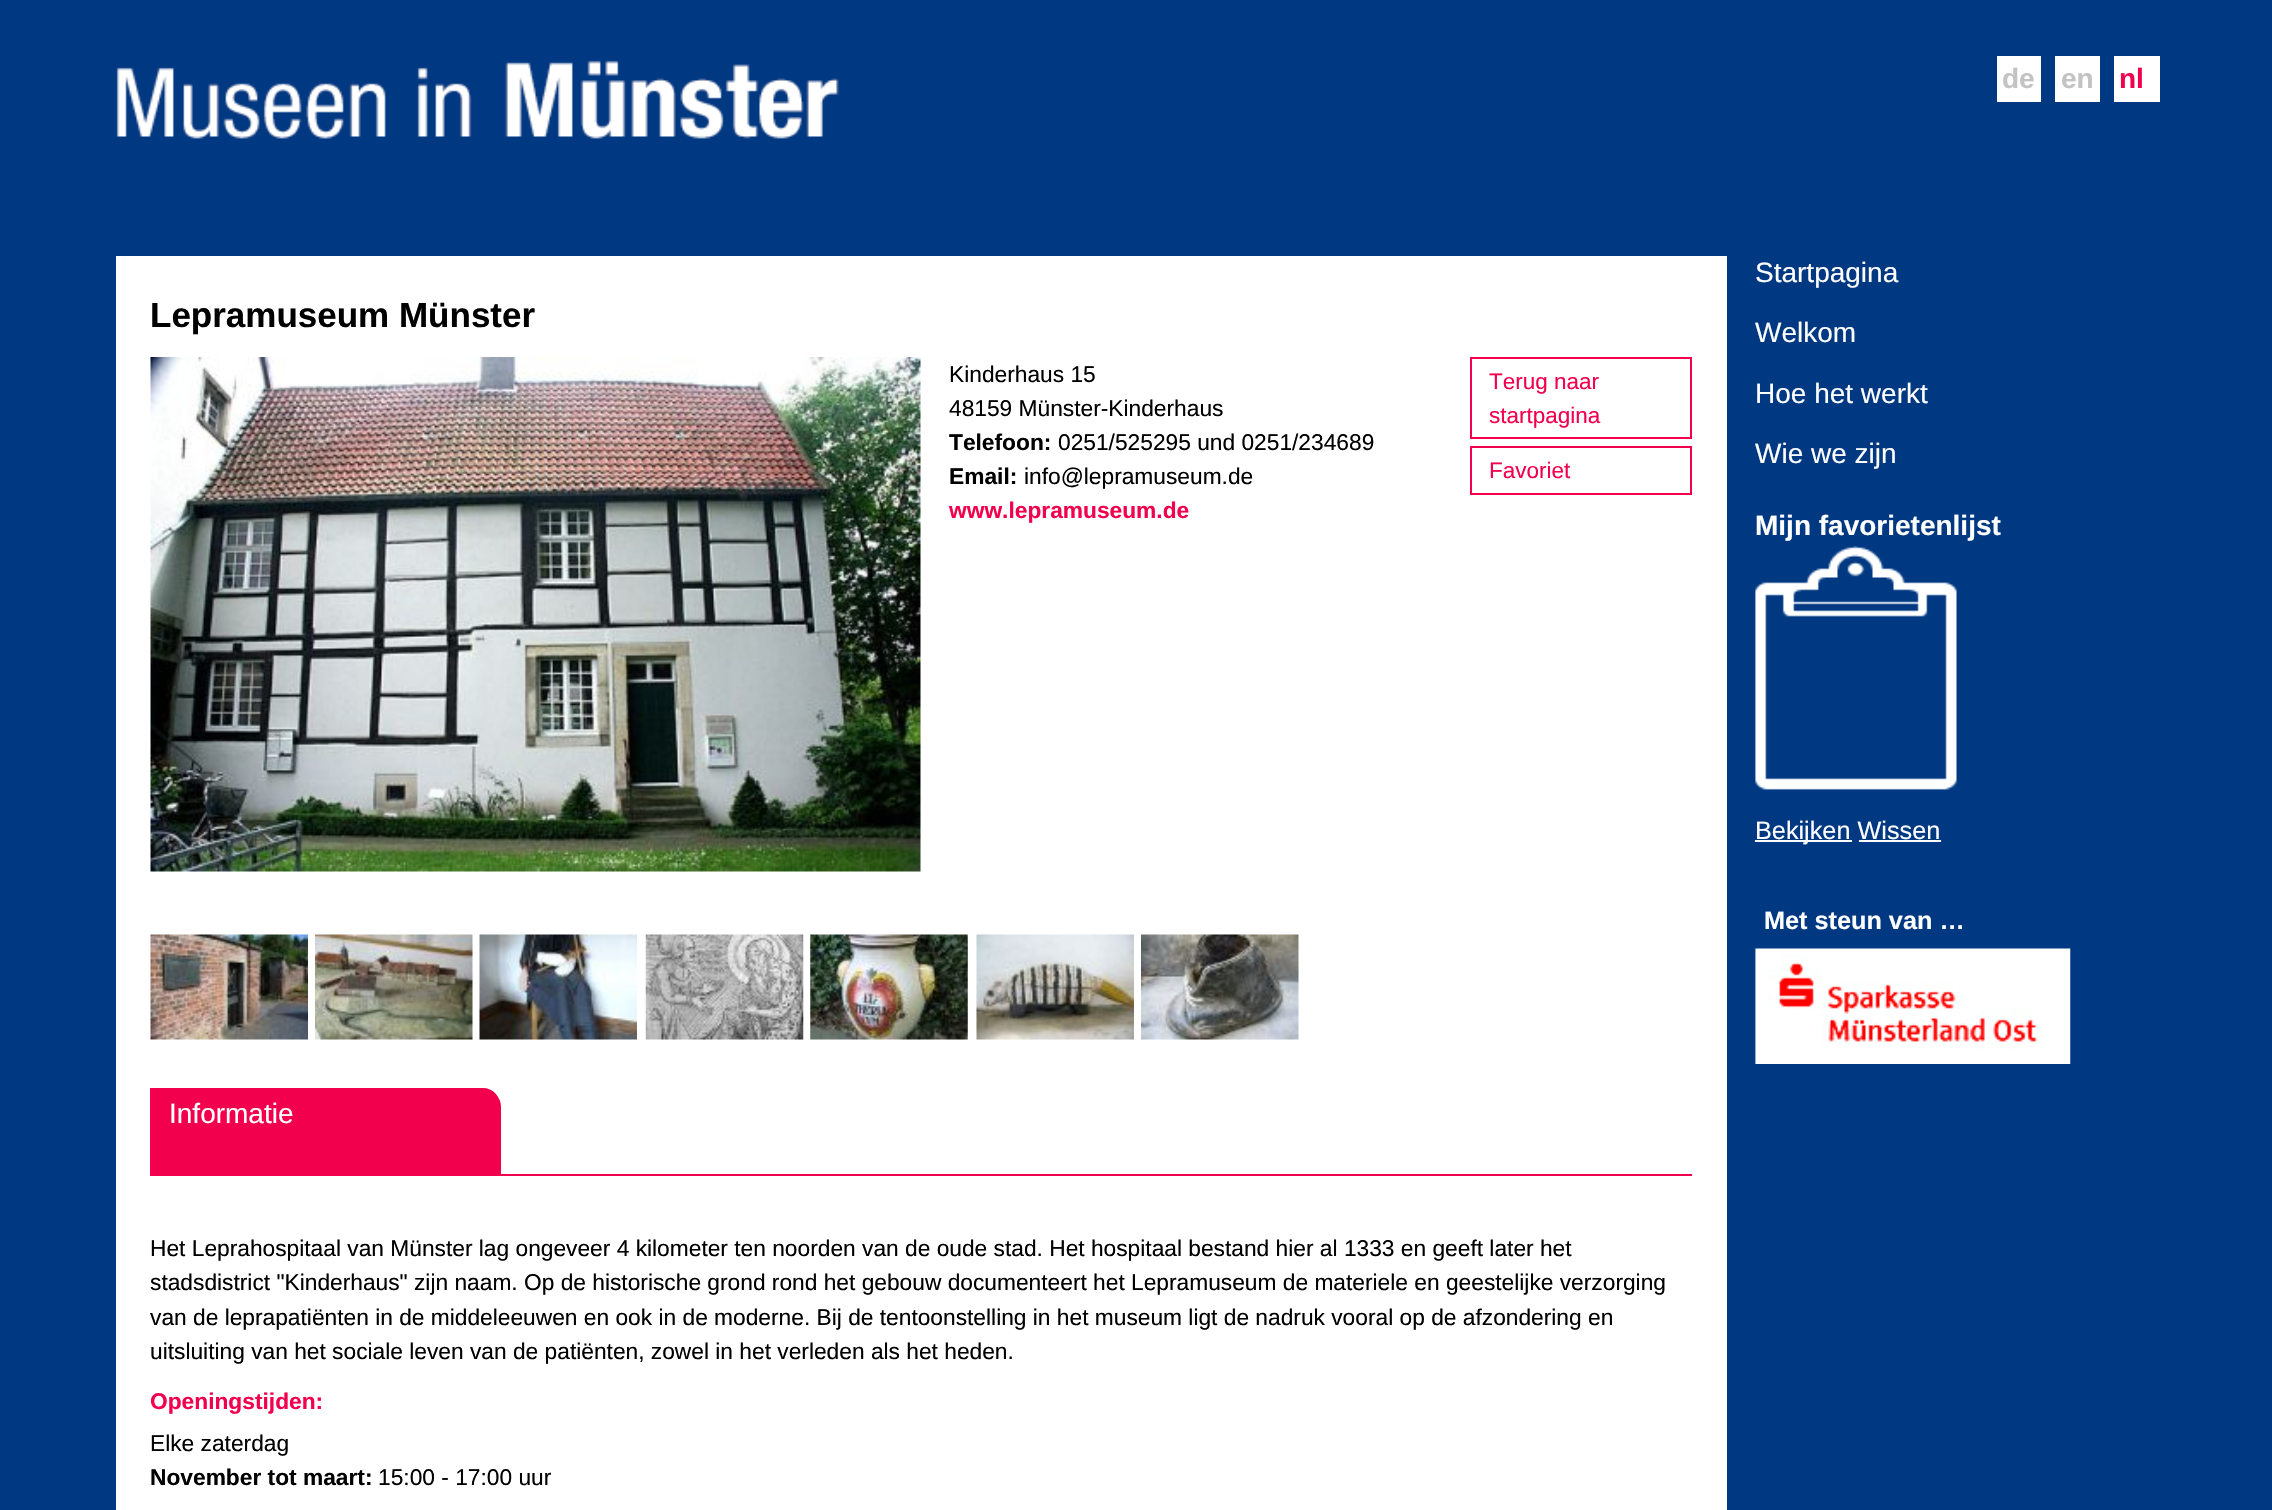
static SkFont makeFont(const char* family, int weight, float size, bool italic = false) {
  SkFontStyle style(weight, SkFontStyle::kNormal_Width,
    italic ? SkFontStyle::kItalic_Slant : SkFontStyle::kUpright_Slant);
  SkFont result(fontMgr->matchFamilyStyle(family, style), size);
  result.setSubpixel(true);
  return result;
}

static void text(SkCanvas* c, const char* s, float x, float y, const SkFont& font, SkColor color) {
  SkPaint ink(SkColor4f::FromColor(color));
  ink.setAntiAlias(true);
  c->drawString(s, x, y, font, ink);
}

static void box(SkCanvas* c, float l, float t, float r, float b, SkColor color) {
  SkPaint ink(SkColor4f::FromColor(color));
  ink.setAntiAlias(true);
  c->drawRect(SkRect::MakeLTRB(l, t, r, b), ink);
}

static void picture(SkCanvas* c, const char* path, float l, float t, float r, float b) {
  auto image = SkImages::DeferredFromEncodedData(SkData::MakeFromFileName(path));
  c->drawImageRect(image, SkRect::MakeLTRB(l, t, r, b), SkSamplingOptions());
}

void draw(SkCanvas* c) {
  SkPaint paint;
  paint.setAntiAlias(true);
  c->clear(0xff003882);
  picture(c, "img_01.png", 116, 60, 839, 139);
  box(c, 1997, 56, 2041, 102, 0xffffffff);
  SkFont face1 = makeFont("Liberation Sans", 700, 28);
  text(c, "de", 2002, 88, face1, 0xffc3c3c3);
  box(c, 2055, 56, 2100, 102, 0xffffffff);
  text(c, "en", 2061, 88, face1, 0xffc3c3c3);
  box(c, 2114, 56, 2160, 102, 0xffffffff);
  text(c, "nl", 2119, 88, face1, 0xfff2004d);
  box(c, 116, 256, 1727, 1510, 0xffffffff);
  SkFont face2 = makeFont("Liberation Sans", 700, 35);
  text(c, "Lepramuseum Münster", 150, 327, face2, 0xff000000);
  picture(c, "img_02.png", 150, 357, 921, 872);
  SkFont face3 = makeFont("Liberation Sans", 400, 22.75f);
  text(c, "Kinderhaus 15", 949, 382, face3, 0xff000000);
  text(c, "48159 Münster-Kinderhaus", 949, 416, face3, 0xff000000);
  SkFont face4 = makeFont("Liberation Sans", 700, 22.75f);
  text(c, "Telefoon:", 949, 450, face4, 0xff000000);
  text(c, "0251/525295 und 0251/234689", 1058, 450, face3, 0xff000000);
  text(c, "Email:", 949, 484, face4, 0xff000000);
  text(c, "info@lepramuseum.de", 1024, 484, face3, 0xff000000);
  text(c, "www.lepramuseum.de", 949, 518, face4, 0xfff2004d);
  paint.setStyle(SkPaint::kStroke_Style);
  paint.setStrokeWidth(2);
  paint.setColor(0xfff2004d);
  c->drawRect(SkRect::MakeLTRB(1471, 358, 1691, 438), paint);
  SkFont face5 = makeFont("Liberation Sans", 400, 22.5f);
  text(c, "Terug naar", 1489, 389, face5, 0xfff2004d);
  text(c, "startpagina", 1489, 423, face5, 0xfff2004d);
  c->drawRect(SkRect::MakeLTRB(1471, 447, 1691, 494), paint);
  text(c, "Favoriet", 1489, 478, face5, 0xfff2004d);
  picture(c, "img_03.png", 150, 934, 308, 1040);
  picture(c, "img_04.png", 315, 934, 473, 1040);
  picture(c, "img_05.png", 479, 934, 637, 1040);
  picture(c, "img_06.png", 645, 934, 804, 1040);
  picture(c, "img_07.png", 810, 934, 968, 1040);
  picture(c, "img_08.png", 976, 934, 1134, 1040);
  picture(c, "img_09.png", 1141, 934, 1299, 1040);
  box(c, 501, 1174, 1692, 1176, 0xfff2004d);
  paint.setStyle(SkPaint::kFill_Style);
  c->drawPath(SkPathBuilder().moveTo(151, 1089).lineTo(483, 1089).cubicTo(493, 1089, 501, 1097, 501, 1107).lineTo(501, 1176).lineTo(151, 1176).close().detach(), paint);
  c->drawPath(SkPathBuilder(SkPathFillType::kEvenOdd).moveTo(150, 1088).lineTo(483, 1088).cubicTo(493, 1088, 500, 1096, 500, 1106).lineTo(500, 1176).lineTo(150, 1176).close().moveTo(152, 1090).lineTo(483, 1090).cubicTo(492, 1090, 499, 1097, 499, 1106).lineTo(499, 1176).lineTo(152, 1176).close().detach(), paint);
  SkFont face6 = makeFont("Liberation Sans", 400, 28);
  text(c, "Informatie", 169, 1123, face6, 0xffffffff);
  text(c, "Het Leprahospitaal van Münster lag ongeveer 4 kilometer ten noorden van de oude stad. Het hospitaal bestand hier al 1333 en geeft later het", 150, 1256, face3, 0xff000000);
  text(c, "stadsdistrict \"Kinderhaus\" zijn naam. Op de historische grond rond het gebouw documenteert het Lepramuseum de materiele en geestelijke verzorging", 150, 1290, face3, 0xff000000);
  text(c, "van de leprapatiënten in de middeleeuwen en ook in de moderne. Bij de tentoonstelling in het museum ligt de nadruk vooral op de afzondering en", 150, 1325, face3, 0xff000000);
  text(c, "uitsluiting van het sociale leven van de patiënten, zowel in het verleden als het heden.", 150, 1359, face3, 0xff000000);
  text(c, "Openingstijden:", 150, 1409, face4, 0xfff2004d);
  text(c, "Elke zaterdag", 150, 1451, face3, 0xff000000);
  text(c, "November tot maart:", 150, 1485, face4, 0xff000000);
  text(c, "15:00 - 17:00 uur", 378, 1485, face3, 0xff000000);
  text(c, "Startpagina", 1755, 282, face6, 0xffffffff);
  text(c, "Welkom", 1755, 342, face6, 0xffffffff);
  text(c, "Hoe het werkt", 1755, 403, face6, 0xffffffff);
  text(c, "Wie we zijn", 1755, 463, face6, 0xffffffff);
  text(c, "Mijn favorietenlijst", 1755, 535, face1, 0xffffffff);
  picture(c, "img_10.png", 1755, 546, 1957, 790);
  box(c, 1755, 840, 1852, 842, 0xffffffff);
  SkFont face7 = makeFont("Liberation Sans", 400, 25.25f);
  text(c, "Bekijken Wissen", 1755, 839, face7, 0xffffffff);
  box(c, 1859, 840, 1941, 842, 0xffffffff);
  SkFont face8 = makeFont("Liberation Sans", 700, 25.25f);
  text(c, "Met steun van …", 1764, 929, face8, 0xffffffff);
  picture(c, "img_11.png", 1755, 948, 2071, 1064);
}
